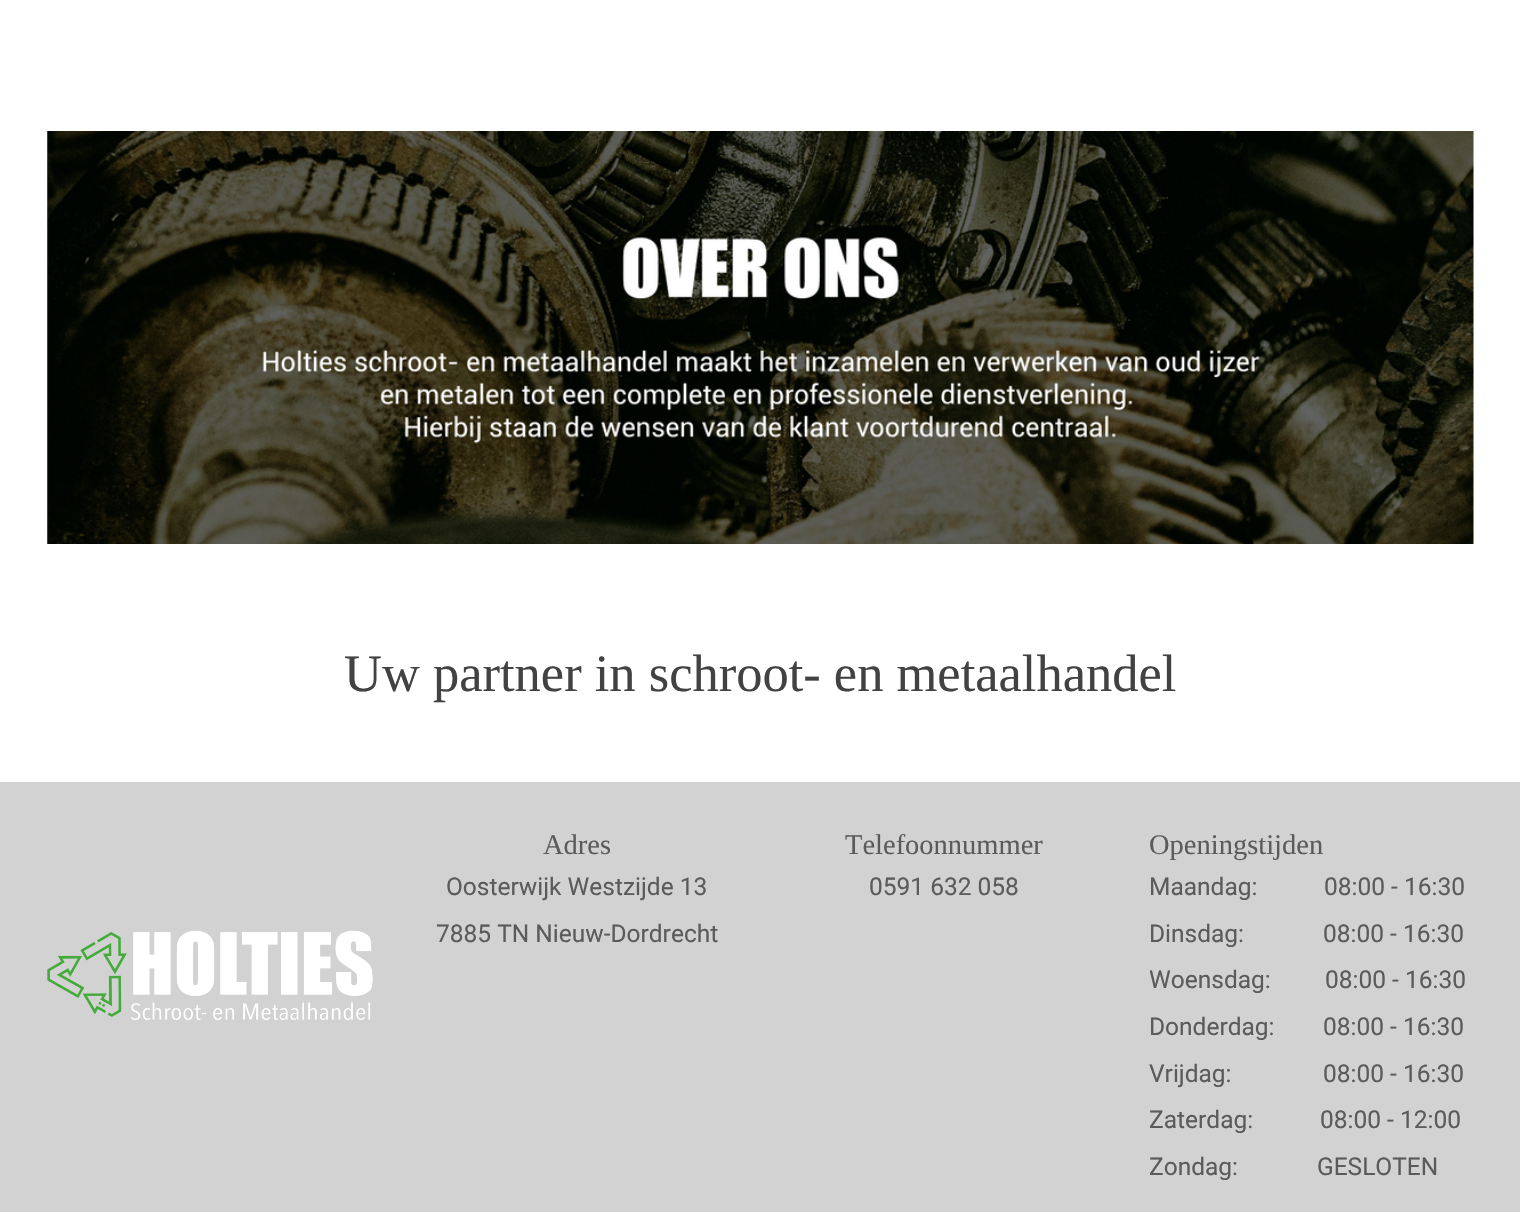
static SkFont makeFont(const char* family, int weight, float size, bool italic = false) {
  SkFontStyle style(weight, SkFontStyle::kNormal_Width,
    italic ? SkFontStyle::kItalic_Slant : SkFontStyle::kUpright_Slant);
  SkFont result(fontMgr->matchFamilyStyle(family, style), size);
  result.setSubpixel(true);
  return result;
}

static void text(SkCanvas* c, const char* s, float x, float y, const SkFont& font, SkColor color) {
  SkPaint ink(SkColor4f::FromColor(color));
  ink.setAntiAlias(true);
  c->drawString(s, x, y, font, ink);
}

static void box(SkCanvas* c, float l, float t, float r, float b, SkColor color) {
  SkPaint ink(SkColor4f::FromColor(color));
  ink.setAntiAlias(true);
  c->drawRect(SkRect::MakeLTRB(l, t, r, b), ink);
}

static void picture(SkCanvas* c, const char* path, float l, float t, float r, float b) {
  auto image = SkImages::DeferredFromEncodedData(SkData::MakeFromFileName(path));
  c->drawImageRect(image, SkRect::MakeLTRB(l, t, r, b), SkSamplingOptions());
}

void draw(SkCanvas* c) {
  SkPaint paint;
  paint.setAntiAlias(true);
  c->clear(0xffffffff);
  picture(c, "img_01.png", 47, 131, 1474, 544);
  SkFont face1 = makeFont("Liberation Serif", 400, 52.5f);
  text(c, "Uw partner in schroot- en metaalhandel", 344, 691, face1, 0xff424242);
  box(c, 0, 782, 1520, 1212, 0xffd2d2d2);
  picture(c, "img_02.png", 47, 930, 373, 1020);
  SkFont face2 = makeFont("Liberation Serif", 400, 28.5f);
  text(c, "Adres", 543, 854, face2, 0xff5b5b5b);
  SkFont face3 = makeFont("Roboto", 400, 24.5f);
  text(c, "Oosterwijk Westzijde 13", 446, 895, face3, 0xff5b5b5b);
  text(c, "7885 TN Nieuw-Dordrecht", 436, 942, face3, 0xff5b5b5b);
  text(c, "Telefoonnummer", 845, 854, face2, 0xff5b5b5b);
  text(c, "0591 632 058", 869, 895, face3, 0xff5b5b5b);
  text(c, "Openingstijden", 1149, 854, face2, 0xff5b5b5b);
  text(c, "Maandag:", 1149, 895, face3, 0xff5b5b5b);
  text(c, "08:00 - 16:30", 1324, 895, face3, 0xff5b5b5b);
  text(c, "Dinsdag:", 1149, 942, face3, 0xff5b5b5b);
  text(c, "08:00 - 16:30", 1323, 942, face3, 0xff5b5b5b);
  text(c, "Woensdag:", 1149, 988, face3, 0xff5b5b5b);
  text(c, "08:00 - 16:30", 1325, 988, face3, 0xff5b5b5b);
  text(c, "Donderdag:", 1149, 1035, face3, 0xff5b5b5b);
  text(c, "08:00 - 16:30", 1323, 1035, face3, 0xff5b5b5b);
  text(c, "Vrijdag:", 1149, 1082, face3, 0xff5b5b5b);
  text(c, "08:00 - 16:30", 1323, 1082, face3, 0xff5b5b5b);
  text(c, "Zaterdag:", 1149, 1128, face3, 0xff5b5b5b);
  text(c, "08:00 - 12:00", 1320, 1128, face3, 0xff5b5b5b);
  text(c, "Zondag:", 1149, 1175, face3, 0xff5b5b5b);
  text(c, "GESLOTEN", 1317, 1175, face3, 0xff5b5b5b);
}
